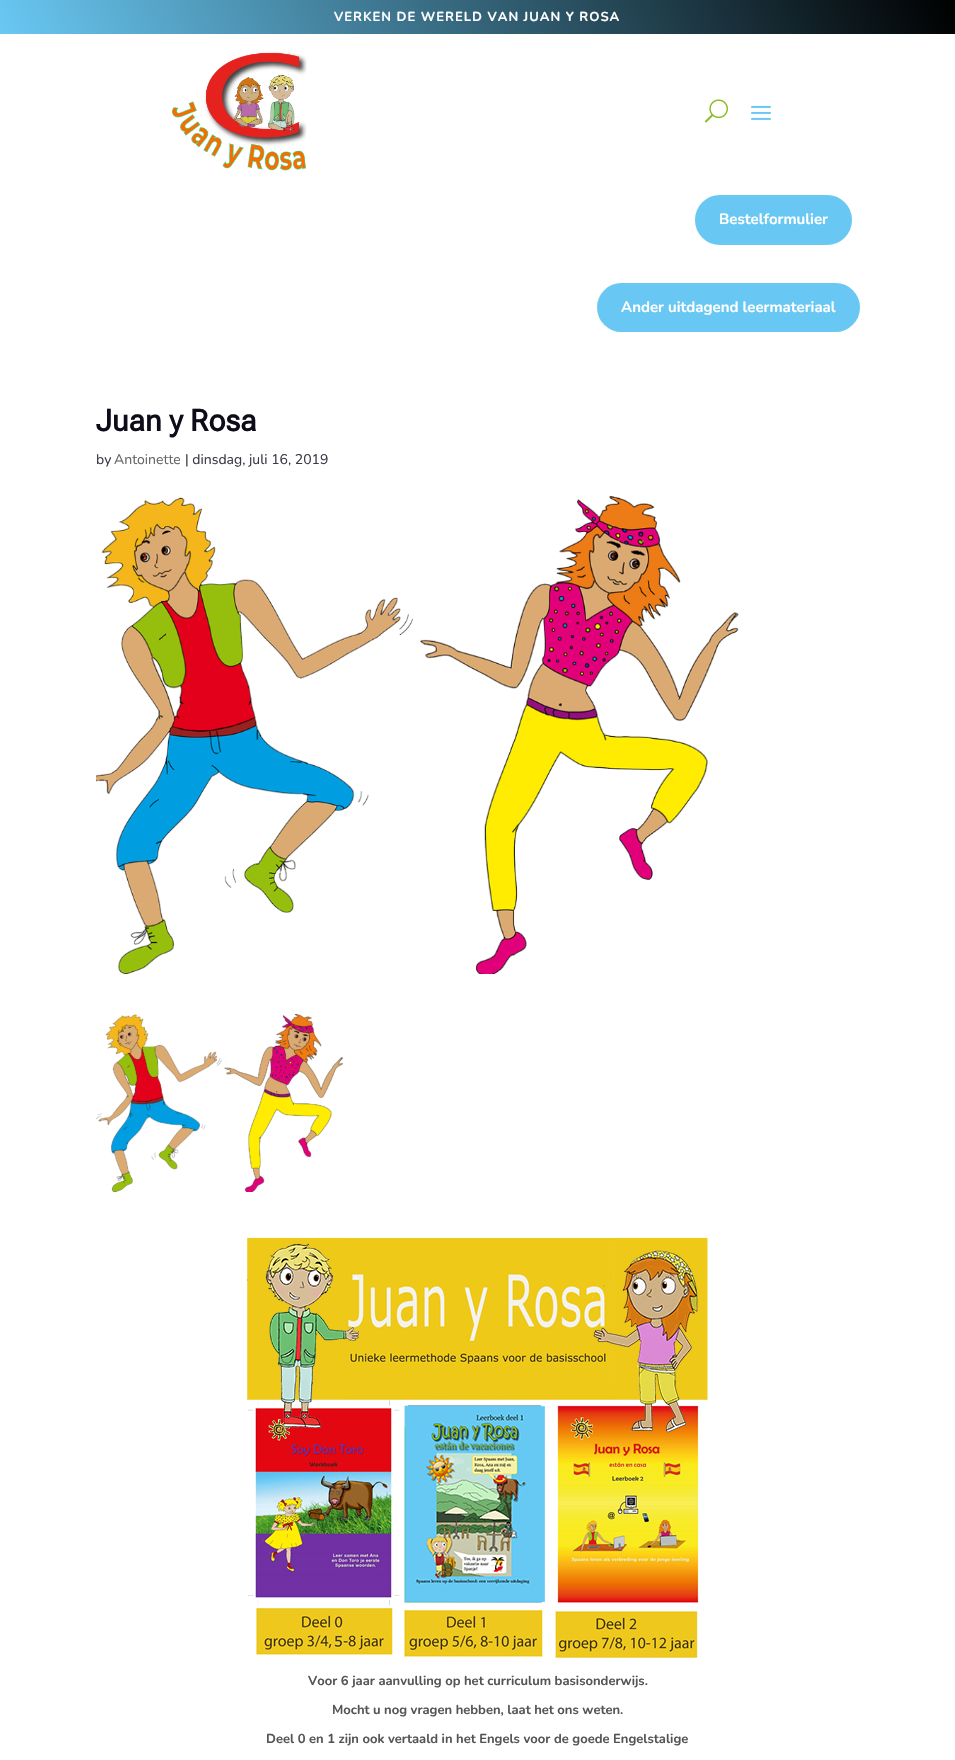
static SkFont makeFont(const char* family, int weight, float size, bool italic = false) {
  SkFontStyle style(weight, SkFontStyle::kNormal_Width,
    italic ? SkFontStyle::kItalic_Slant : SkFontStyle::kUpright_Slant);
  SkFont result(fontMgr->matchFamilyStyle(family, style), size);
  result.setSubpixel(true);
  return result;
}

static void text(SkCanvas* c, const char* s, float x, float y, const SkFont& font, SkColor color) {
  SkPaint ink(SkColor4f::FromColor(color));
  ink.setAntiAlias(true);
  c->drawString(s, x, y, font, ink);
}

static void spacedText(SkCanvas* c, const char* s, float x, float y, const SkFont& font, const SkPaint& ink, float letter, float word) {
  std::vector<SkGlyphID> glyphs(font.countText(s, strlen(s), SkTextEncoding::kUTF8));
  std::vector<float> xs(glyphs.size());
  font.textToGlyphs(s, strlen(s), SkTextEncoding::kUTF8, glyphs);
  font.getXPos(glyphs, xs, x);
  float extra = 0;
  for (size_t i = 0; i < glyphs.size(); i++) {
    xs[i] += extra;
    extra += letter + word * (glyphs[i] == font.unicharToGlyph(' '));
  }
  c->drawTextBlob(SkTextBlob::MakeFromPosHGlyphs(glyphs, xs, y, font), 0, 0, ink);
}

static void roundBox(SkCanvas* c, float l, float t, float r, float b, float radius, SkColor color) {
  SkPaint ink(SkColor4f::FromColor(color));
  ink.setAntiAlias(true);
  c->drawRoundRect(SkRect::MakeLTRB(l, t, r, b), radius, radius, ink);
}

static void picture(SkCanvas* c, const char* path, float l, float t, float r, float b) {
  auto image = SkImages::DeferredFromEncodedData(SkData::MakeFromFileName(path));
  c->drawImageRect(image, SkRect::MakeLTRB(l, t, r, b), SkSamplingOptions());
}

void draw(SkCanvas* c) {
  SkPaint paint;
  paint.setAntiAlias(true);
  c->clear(0xffffffff);
  {
    const SkColor colors[] = {0xff69c8f3, 0xff000000};
    const float stops[] = {0, 1};
    const SkPoint ends[] = {{79, 203}, {876, -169}};
    paint.setShader(SkGradientShader::MakeLinear(ends, colors, stops, 2, SkTileMode::kClamp));
    paint.setAlpha(255);
  }
  c->drawRect(SkRect::MakeLTRB(0, 0, 955, 34), paint);
  SkFont face1 = makeFont("Nunito", 700, 13);
  paint.setShader(nullptr);
  paint.setColor(0xffffffff);
  spacedText(c, "VERKEN DE WERELD VAN JUAN Y ROSA", 334, 21, face1, paint, 1, 0);
  picture(c, "img_01.png", 172, 51, 307, 171);
  picture(c, "img_02.png", 704, 99, 728, 123);
  picture(c, "img_03.png", 751, 105, 771, 120);
  paint.setColor(0xff69c8f3);
  c->drawRoundRect(SkRect::MakeLTRB(691, 191, 856, 249), 29, 29, paint);
  paint.setStyle(SkPaint::kStroke_Style);
  paint.setStrokeWidth(8);
  paint.setColor(0xffffffff);
  c->drawRoundRect(SkRect::MakeLTRB(691, 191, 856, 249), 29, 29, paint);
  SkFont face2 = makeFont("Nunito", 700, 15);
  text(c, "Bestelformulier", 719, 224, face2, 0xffffffff);
  roundBox(c, 597, 283, 860, 332, 24.5f, 0xff69c8f3);
  text(c, "Ander uitdagend leermateriaal", 621, 312, face2, 0xffffffff);
  SkFont face3 = makeFont("Roboto Flex", 700, 30);
  text(c, "Juan y Rosa", 96, 431, face3, 0xff0e0c19);
  SkFont face4 = makeFont("Nunito", 400, 14);
  text(c, "by", 96, 464, face4, 0xff3c3a47);
  text(c, "Antoinette", 114, 464, face4, 0xff666666);
  text(c, "| dinsdag, juli 16, 2019", 185, 464, face4, 0xff3c3a47);
  picture(c, "img_04.png", 96, 496, 739, 974);
  picture(c, "img_05.png", 96, 1014, 343, 1192);
  picture(c, "img_06.png", 247, 1237, 708, 1658);
  text(c, "Voor 6 jaar aanvulling op het curriculum basisonderwijs.", 308, 1685, face1, 0xff555555);
  text(c, "Mocht u nog vragen hebben, laat het ons weten.", 332, 1714, face1, 0xff555555);
  text(c, "Deel 0 en 1 zijn ook vertaald in het Engels voor de goede Engelstalige", 266, 1743, face1, 0xff555555);
}
